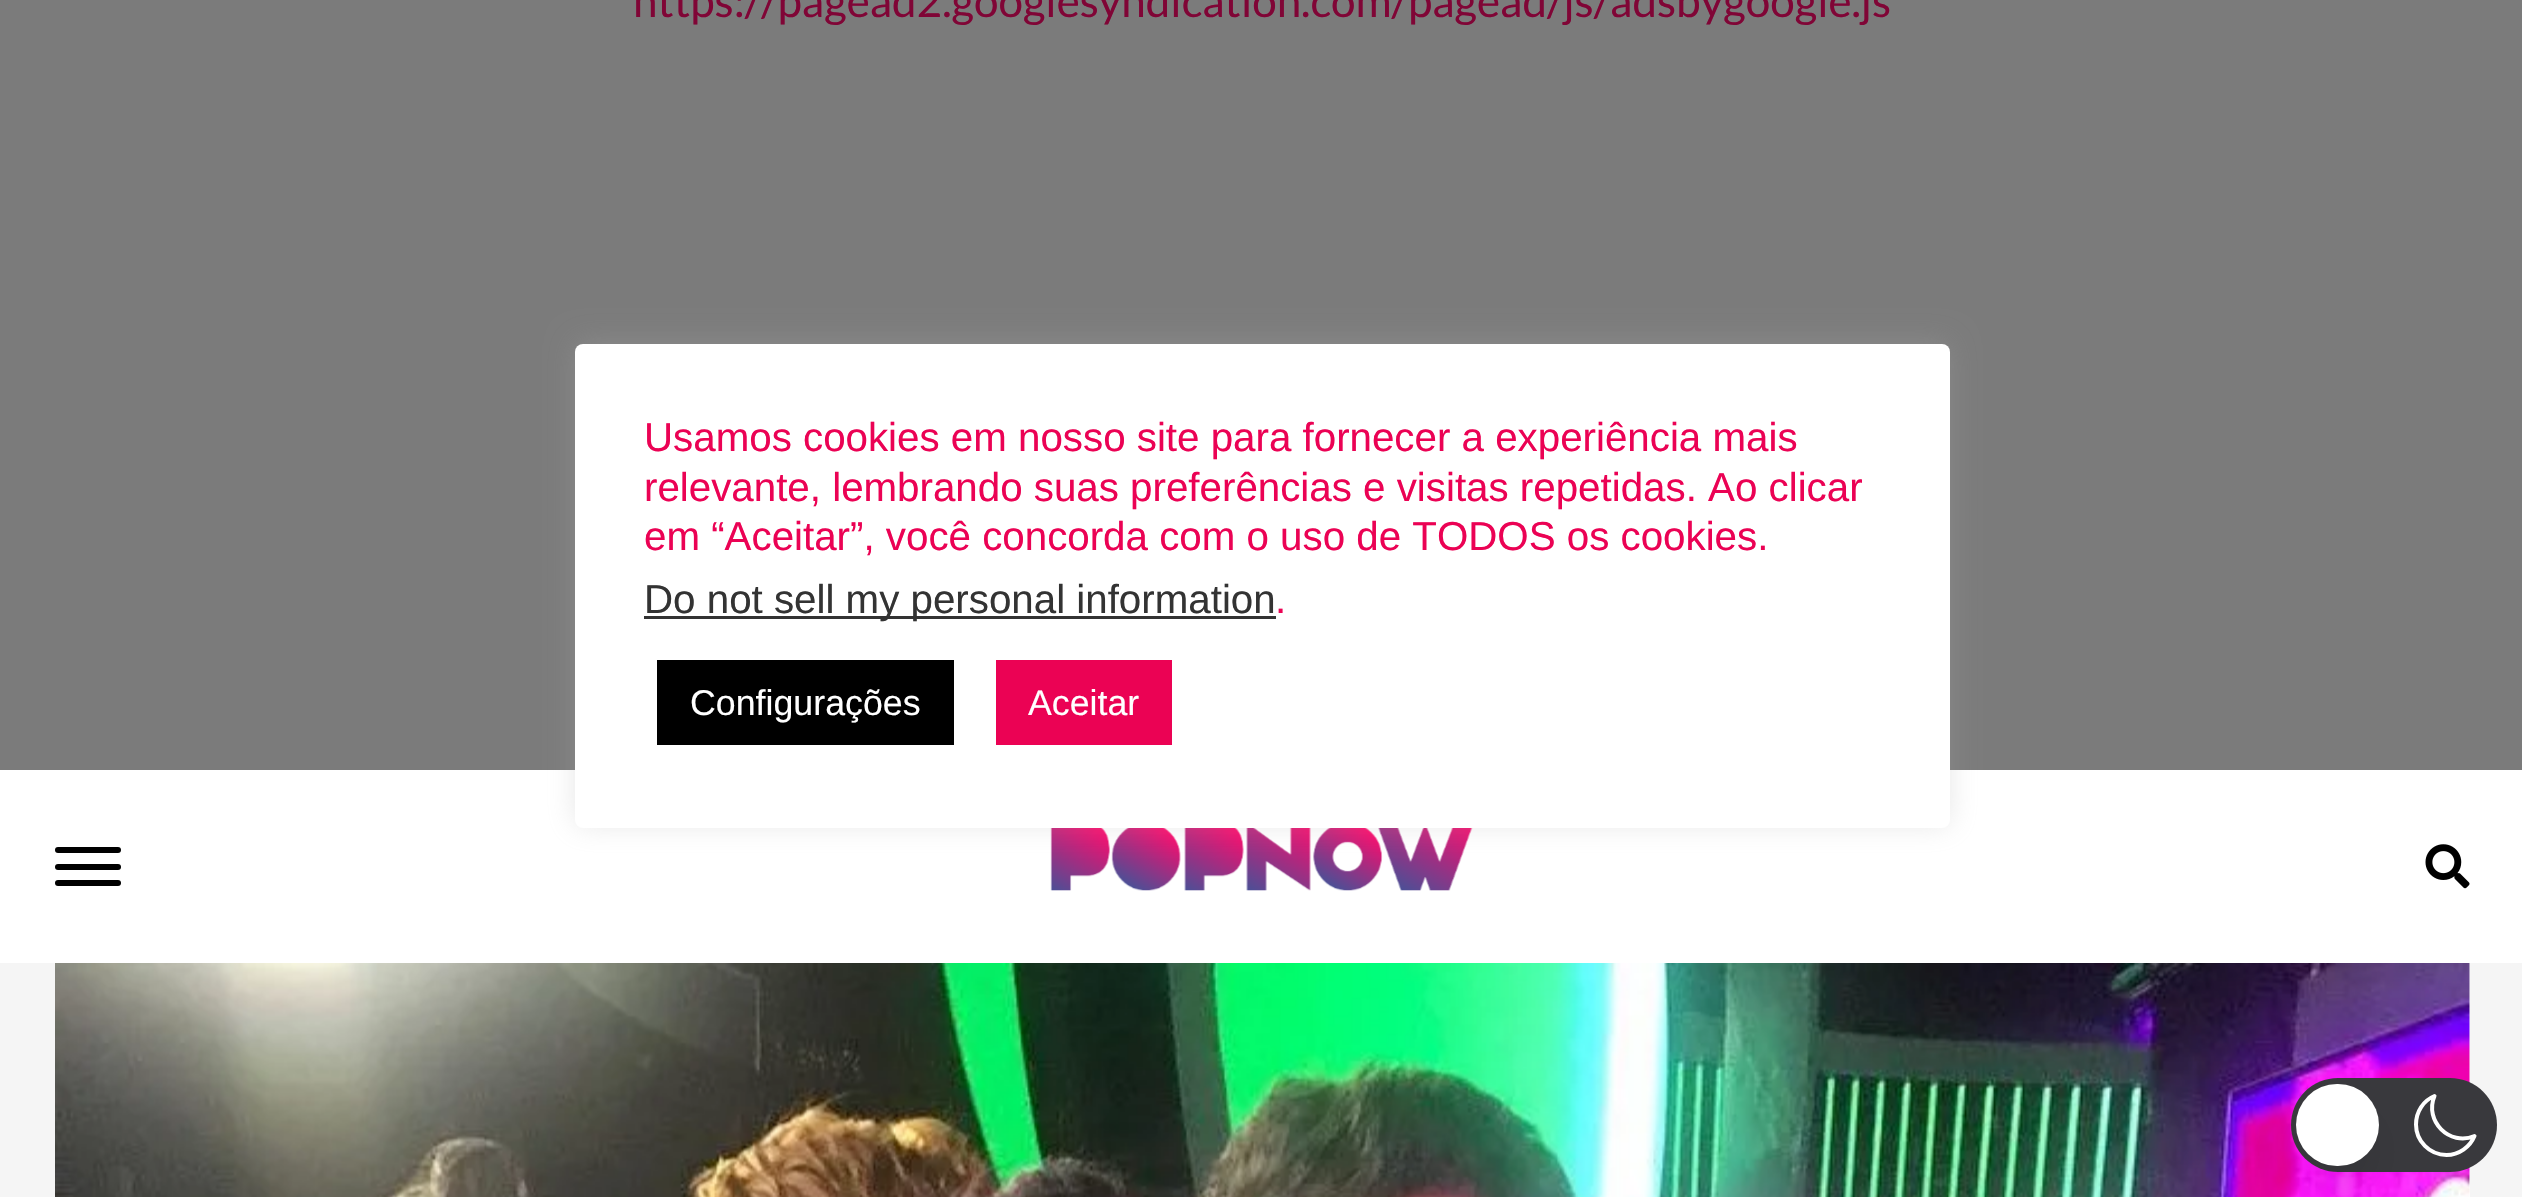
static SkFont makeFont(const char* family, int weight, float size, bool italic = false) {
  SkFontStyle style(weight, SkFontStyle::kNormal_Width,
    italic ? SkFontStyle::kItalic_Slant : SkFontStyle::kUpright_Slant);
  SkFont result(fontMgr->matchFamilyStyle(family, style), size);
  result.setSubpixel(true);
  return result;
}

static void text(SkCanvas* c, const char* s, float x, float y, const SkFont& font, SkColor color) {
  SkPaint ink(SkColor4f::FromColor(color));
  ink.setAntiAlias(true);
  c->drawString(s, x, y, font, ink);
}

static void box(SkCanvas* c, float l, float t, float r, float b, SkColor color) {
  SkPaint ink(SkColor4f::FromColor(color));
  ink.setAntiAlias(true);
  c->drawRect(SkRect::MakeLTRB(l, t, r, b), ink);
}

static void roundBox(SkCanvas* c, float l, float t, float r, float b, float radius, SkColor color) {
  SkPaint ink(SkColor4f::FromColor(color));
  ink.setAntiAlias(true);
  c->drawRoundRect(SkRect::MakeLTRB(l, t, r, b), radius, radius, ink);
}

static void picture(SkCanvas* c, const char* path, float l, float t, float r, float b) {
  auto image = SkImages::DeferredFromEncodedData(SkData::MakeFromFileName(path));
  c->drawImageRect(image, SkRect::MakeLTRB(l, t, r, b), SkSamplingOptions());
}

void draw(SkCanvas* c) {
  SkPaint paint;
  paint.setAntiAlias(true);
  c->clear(0xff7b7b7b);
  SkFont face1 = makeFont("Lato", 400, 44);
  text(c, "https://pagead2.googlesyndication.com/pagead/js/adsbygoogle.js", 633, 17, face1, 0xff800536);
  box(c, 0, 770, 2522, 963, 0xffffffff);
  roundBox(c, 55, 847, 121, 853, 3, 0xff000000);
  roundBox(c, 55, 864, 121, 870, 3, 0xff000000);
  roundBox(c, 55, 880, 121, 886, 3, 0xff000000);
  picture(c, "img_01.png", 1050, 828, 1473, 891);
  picture(c, "img_02.png", 2425, 844, 2470, 889);
  box(c, 0, 963, 2522, 1197, 0xfff5f5f5);
  box(c, 2469, 963, 2470, 1197, 0xffffffff);
  picture(c, "img_03.png", 55, 963, 2470, 1197);
  paint.setColor(0x4dacabab);
  paint.setMaskFilter(SkMaskFilter::MakeBlur(kNormal_SkBlurStyle, 14));
  c->drawRoundRect(SkRect::MakeLTRB(575, 341, 1950, 825), 8, 8, paint);
  paint.setMaskFilter(nullptr);
  roundBox(c, 575, 344, 1950, 828, 8, 0xffffffff);
  SkFont face2 = makeFont("Liberation Sans", 400, 40.3f);
  text(c, "Usamos cookies em nosso site para fornecer a experiência mais", 644, 451, face2, 0xffeb0254);
  text(c, "relevante, lembrando suas preferências e visitas repetidas. Ao clicar", 644, 501, face2, 0xffeb0254);
  text(c, "em “Aceitar”, você concorda com o uso de TODOS os cookies.", 644, 550, face2, 0xffeb0254);
  box(c, 644, 616, 1276, 619, 0xff333333);
  text(c, "Do not sell my personal information", 644, 613, face2, 0xff333333);
  text(c, ".", 1275, 613, face2, 0xffeb0254);
  box(c, 657, 660, 954, 745, 0xff000000);
  SkFont face3 = makeFont("Liberation Sans", 400, 35.75f);
  text(c, "Configurações", 690, 715, face3, 0xffffffff);
  box(c, 996, 660, 1172, 745, 0xffeb0254);
  text(c, "Aceitar", 1028, 715, face3, 0xffffffff);
  roundBox(c, 2291, 1078, 2497, 1172, 47, 0xff39393d);
  paint.setStyle(SkPaint::kStroke_Style);
  paint.setStrokeWidth(4);
  paint.setStrokeCap(SkPaint::kRound_Cap);
  paint.setStrokeJoin(SkPaint::kRound_Join);
  paint.setColor(0xffffffff);
  c->drawPath(SkPathBuilder().moveTo(2474.5f, 1136).cubicTo(2449.5f, 1146.5f, 2424, 1121, 2434.5f, 1096).cubicTo(2423.5f, 1100.5f, 2416, 1111.5f, 2416, 1124.5f).cubicTo(2416, 1141, 2429.5f, 1155, 2446.5f, 1155).cubicTo(2459, 1155, 2470, 1147, 2474.5f, 1136).close().detach(), paint);
  paint.setStyle(SkPaint::kFill_Style);
  paint.setColor(0x1a000000);
  paint.setMaskFilter(SkMaskFilter::MakeBlur(kNormal_SkBlurStyle, 20.5f));
  c->drawRoundRect(SkRect::MakeLTRB(2305, 1119, 2371, 1185), 33, 33, paint);
  paint.setMaskFilter(nullptr);
  roundBox(c, 2296, 1084, 2379, 1166, 41, 0xffffffff);
}
